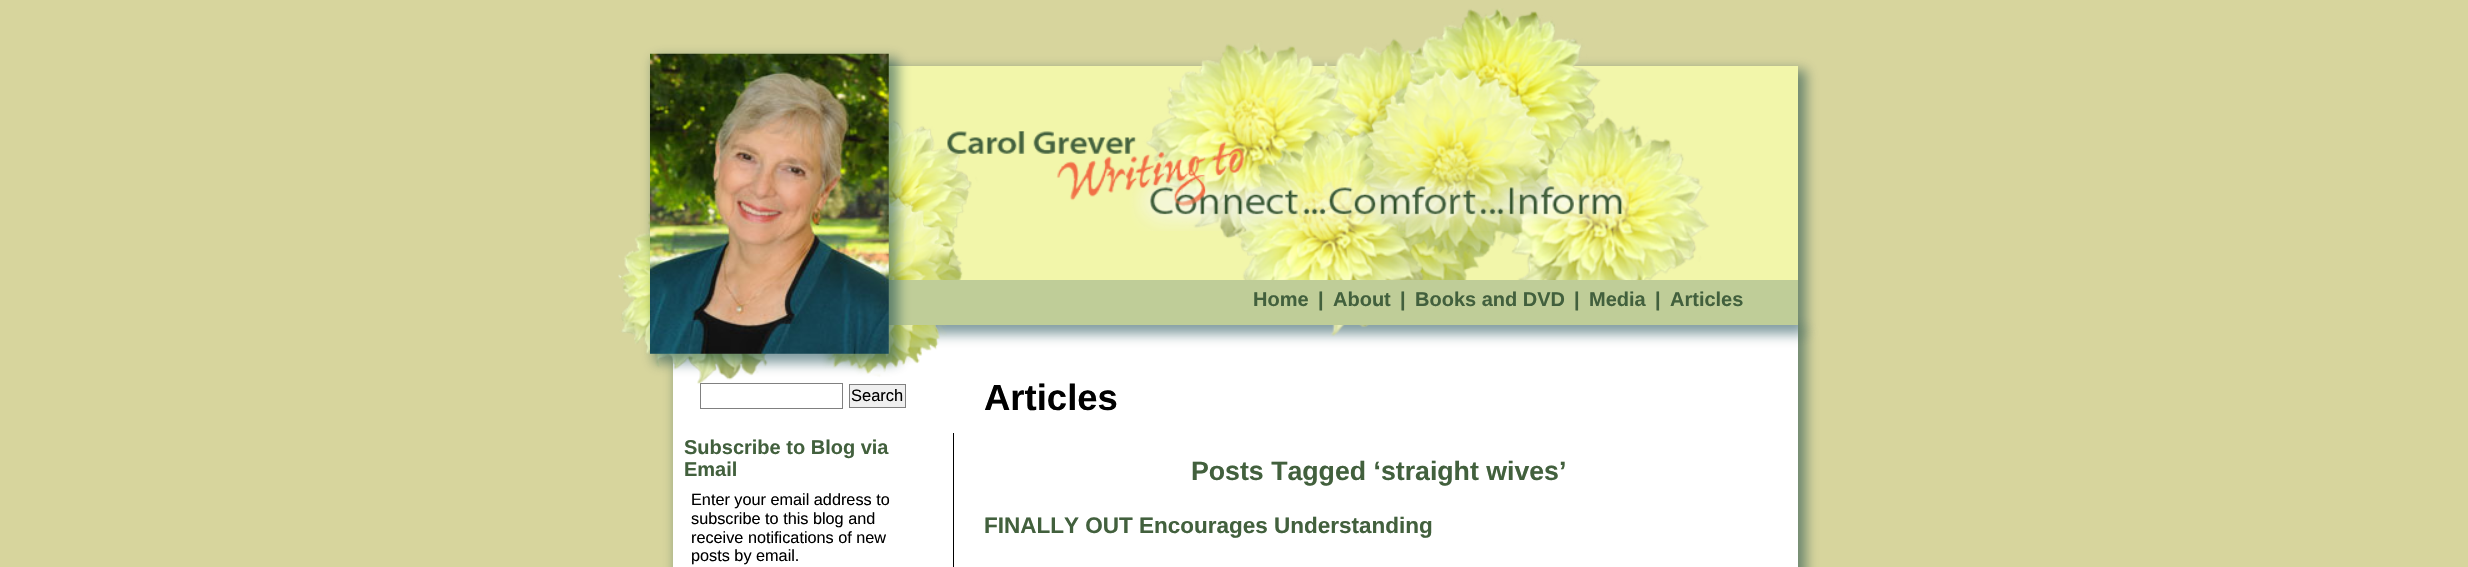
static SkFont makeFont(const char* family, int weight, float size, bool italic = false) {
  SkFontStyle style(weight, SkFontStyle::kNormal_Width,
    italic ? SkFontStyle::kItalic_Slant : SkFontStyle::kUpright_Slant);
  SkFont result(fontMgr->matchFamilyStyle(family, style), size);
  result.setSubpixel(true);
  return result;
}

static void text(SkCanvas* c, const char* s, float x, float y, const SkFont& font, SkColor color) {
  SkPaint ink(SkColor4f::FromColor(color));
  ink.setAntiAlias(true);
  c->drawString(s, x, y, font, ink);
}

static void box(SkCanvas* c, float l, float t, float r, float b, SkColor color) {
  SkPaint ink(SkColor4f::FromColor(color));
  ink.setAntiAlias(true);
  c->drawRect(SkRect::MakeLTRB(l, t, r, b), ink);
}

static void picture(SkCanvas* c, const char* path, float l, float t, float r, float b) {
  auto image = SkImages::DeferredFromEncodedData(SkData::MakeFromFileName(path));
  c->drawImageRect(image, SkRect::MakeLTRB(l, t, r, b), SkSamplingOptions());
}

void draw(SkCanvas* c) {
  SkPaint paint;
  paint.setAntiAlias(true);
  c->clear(0xffd7d59d);
  box(c, 888, 66, 1798, 280, 0xfff2f6aa);
  paint.setColor(0x8002373f);
  paint.setMaskFilter(SkMaskFilter::MakeBlur(kNormal_SkBlurStyle, 6));
  c->drawRect(SkRect::MakeLTRB(676, 329, 1806, 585), paint);
  paint.setMaskFilter(nullptr);
  box(c, 673, 325, 1798, 567, 0xffffffff);
  c->save();
  c->clipPath(SkPathBuilder(SkPathFillType::kEvenOdd).moveTo(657, 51).lineTo(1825, 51).lineTo(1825, 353).lineTo(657, 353).close().moveTo(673, 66).lineTo(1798, 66).lineTo(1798, 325).lineTo(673, 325).close().detach(), true);
  paint.setMaskFilter(SkMaskFilter::MakeBlur(kNormal_SkBlurStyle, 6));
  c->drawRect(SkRect::MakeLTRB(676, 70, 1806, 334), paint);
  paint.setMaskFilter(nullptr);
  c->restore();
  paint.setStyle(SkPaint::kStroke_Style);
  paint.setStrokeWidth(1);
  paint.setColor(0xff808080);
  c->drawRect(SkRect::MakeLTRB(700.5f, 383.5f, 842.5f, 408.5f), paint);
  SkFont face1 = makeFont("Liberation Sans", 700, 36.5f);
  text(c, "Articles", 984, 410, face1, 0xff000000);
  picture(c, "img_01.png", 618, 8, 1710, 384);
  box(c, 888, 280, 1798, 325, 0xffbfcd98);
  paint.setStyle(SkPaint::kFill_Style);
  paint.setColor(0x8002373f);
  paint.setMaskFilter(SkMaskFilter::MakeBlur(kNormal_SkBlurStyle, 6));
  c->drawRect(SkRect::MakeLTRB(654, 58, 898, 363), paint);
  paint.setMaskFilter(nullptr);
  picture(c, "img_02.png", 650, 53, 889, 354);
  picture(c, "img_03.png", 947, 131, 1629, 231);
  SkFont face2 = makeFont("Liberation Sans", 700, 20);
  text(c, "Home", 1253, 306, face2, 0xff42603d);
  text(c, "|", 1318, 306, face2, 0xff42603d);
  text(c, "About", 1333, 306, face2, 0xff42603d);
  text(c, "|", 1400, 306, face2, 0xff42603d);
  text(c, "Books and DVD", 1415, 306, face2, 0xff42603d);
  text(c, "|", 1574, 306, face2, 0xff42603d);
  text(c, "Media", 1589, 306, face2, 0xff42603d);
  text(c, "|", 1655, 306, face2, 0xff42603d);
  text(c, "Articles", 1670, 306, face2, 0xff42603d);
  paint.setColor(0xffefefef);
  c->drawRect(SkRect::MakeLTRB(849.5f, 384.5f, 905.5f, 407.5f), paint);
  paint.setStyle(SkPaint::kStroke_Style);
  paint.setColor(0xff808080);
  c->drawRect(SkRect::MakeLTRB(849.5f, 384.5f, 905.5f, 407.5f), paint);
  SkFont face3 = makeFont("Liberation Sans", 400, 16.5f);
  text(c, "Search", 851, 401, face3, 0xff000000);
  text(c, "Subscribe to Blog via", 684, 454, face2, 0xff42603d);
  text(c, "Email", 684, 476, face2, 0xff42603d);
  SkFont face4 = makeFont("Liberation Sans", 400, 16.25f);
  text(c, "Enter your email address to", 691, 505, face4, 0xff000000);
  text(c, "subscribe to this blog and", 691, 524, face4, 0xff000000);
  text(c, "receive notifications of new", 691, 543, face4, 0xff000000);
  text(c, "posts by email.", 691, 561, face4, 0xff000000);
  box(c, 953, 433, 954, 567, 0xff000000);
  SkFont face5 = makeFont("Liberation Sans", 700, 26.7f);
  text(c, "Posts Tagged ‘straight wives’", 1191, 480, face5, 0xff42603d);
  SkFont face6 = makeFont("Liberation Sans", 700, 22.5f);
  text(c, "FINALLY OUT Encourages Understanding", 984, 533, face6, 0xff42603d);
}
